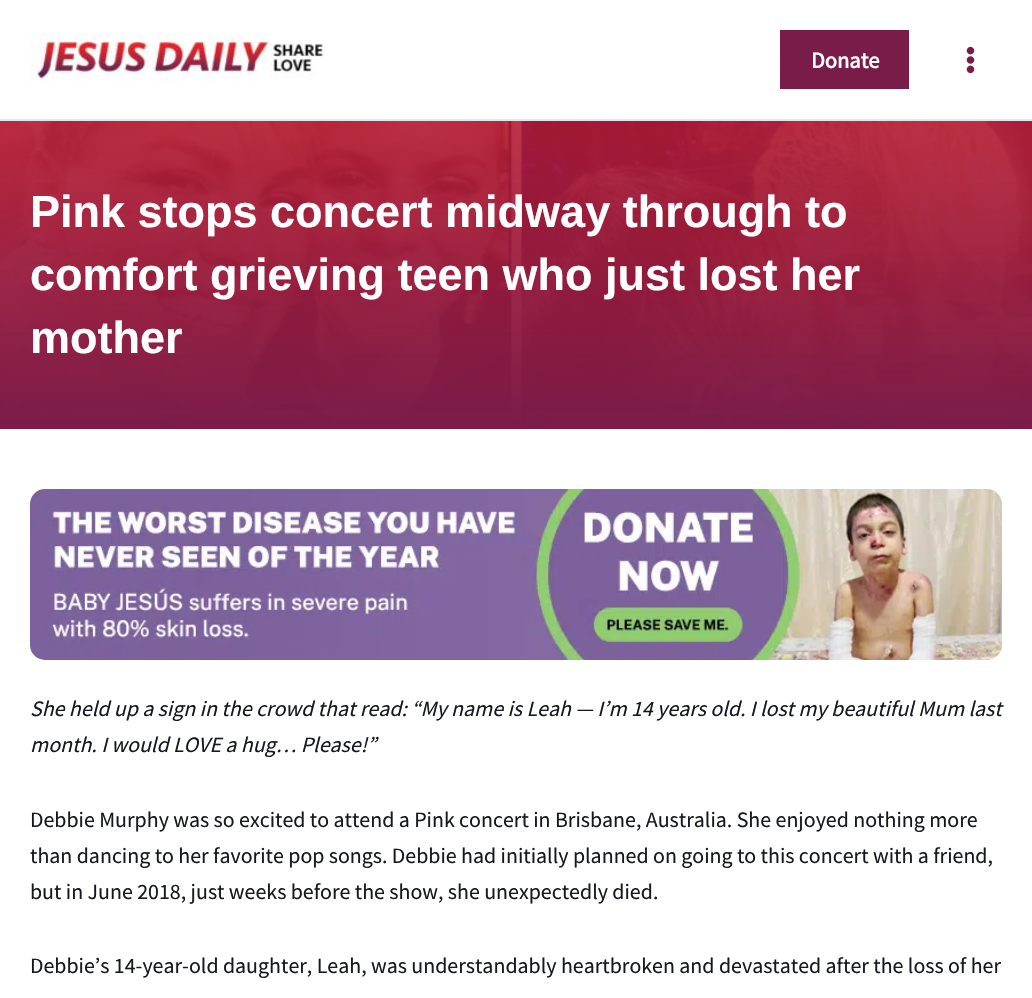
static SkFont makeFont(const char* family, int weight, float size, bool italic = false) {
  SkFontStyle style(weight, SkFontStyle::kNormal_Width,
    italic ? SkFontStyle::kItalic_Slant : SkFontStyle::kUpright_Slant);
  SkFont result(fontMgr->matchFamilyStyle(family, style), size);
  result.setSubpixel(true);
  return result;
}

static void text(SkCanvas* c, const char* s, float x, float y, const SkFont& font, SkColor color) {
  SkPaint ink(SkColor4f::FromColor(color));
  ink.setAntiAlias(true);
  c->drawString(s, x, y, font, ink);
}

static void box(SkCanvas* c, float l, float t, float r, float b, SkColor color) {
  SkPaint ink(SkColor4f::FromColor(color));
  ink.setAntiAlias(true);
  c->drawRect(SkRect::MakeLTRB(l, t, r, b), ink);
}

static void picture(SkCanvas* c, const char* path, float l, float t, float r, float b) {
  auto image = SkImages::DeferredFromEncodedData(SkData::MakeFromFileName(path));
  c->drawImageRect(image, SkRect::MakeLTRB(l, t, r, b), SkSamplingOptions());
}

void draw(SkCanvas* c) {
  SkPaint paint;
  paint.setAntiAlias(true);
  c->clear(0xffffffff);
  box(c, 0, 119, 1032, 121, 0xffe2e8f0);
  picture(c, "img_01.png", 30, 33, 324, 86);
  box(c, 780, 30, 909, 89, 0xff7a1c49);
  SkFont face1 = makeFont("Source Sans Pro", 700, 22.5f);
  text(c, "Donate", 811, 68, face1, 0xffffffff);
  picture(c, "img_02.png", 966, 46, 975, 74);
  picture(c, "img_03.png", 0, 121, 1032, 429);
  SkFont face2 = makeFont("Liberation Sans", 700, 45);
  text(c, "Pink stops concert midway through to", 30, 227, face2, 0xffffffff);
  text(c, "comfort grieving teen who just lost her", 30, 290, face2, 0xffffffff);
  text(c, "mother", 30, 353, face2, 0xffffffff);
  picture(c, "img_04.png", 30, 489, 1002, 660);
  SkFont face3 = makeFont("Source Sans Pro", 400, 21.9f, true);
  text(c, "She held up a sign in the crowd that read: “My name is Leah — I’m 14 years old. I lost my beautiful Mum last", 30, 716, face3, 0xff151820);
  text(c, "month. I would LOVE a hug… Please!”", 30, 752, face3, 0xff151820);
  SkFont face4 = makeFont("Source Sans Pro", 400, 21.9f);
  text(c, "Debbie Murphy was so excited to attend a Pink concert in Brisbane, Australia. She enjoyed nothing more", 30, 827, face4, 0xff151820);
  text(c, "than dancing to her favorite pop songs. Debbie had initially planned on going to this concert with a friend,", 30, 863, face4, 0xff151820);
  text(c, "but in June 2018, just weeks before the show, she unexpectedly died.", 30, 899, face4, 0xff151820);
  text(c, "Debbie’s 14-year-old daughter, Leah, was understandably heartbroken and devastated after the loss of her", 30, 973, face4, 0xff151820);
}
